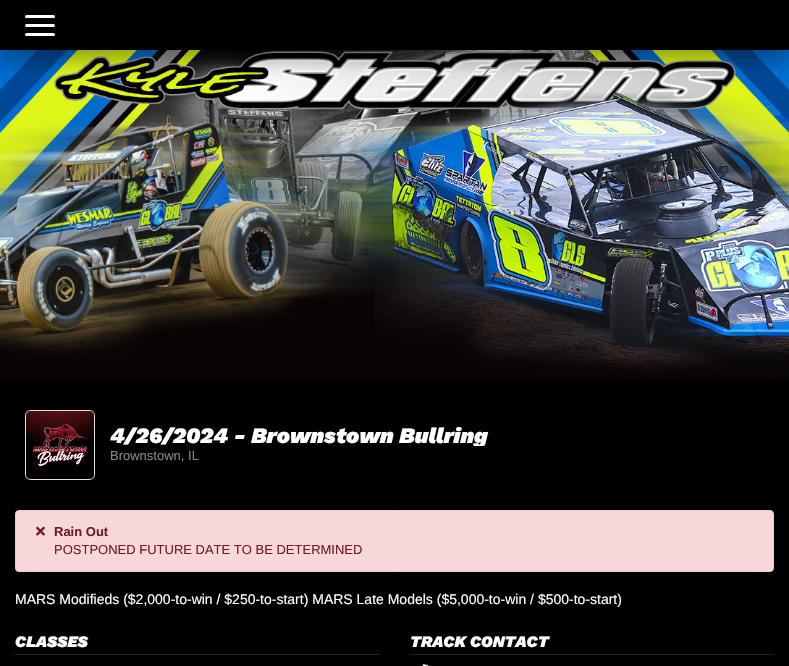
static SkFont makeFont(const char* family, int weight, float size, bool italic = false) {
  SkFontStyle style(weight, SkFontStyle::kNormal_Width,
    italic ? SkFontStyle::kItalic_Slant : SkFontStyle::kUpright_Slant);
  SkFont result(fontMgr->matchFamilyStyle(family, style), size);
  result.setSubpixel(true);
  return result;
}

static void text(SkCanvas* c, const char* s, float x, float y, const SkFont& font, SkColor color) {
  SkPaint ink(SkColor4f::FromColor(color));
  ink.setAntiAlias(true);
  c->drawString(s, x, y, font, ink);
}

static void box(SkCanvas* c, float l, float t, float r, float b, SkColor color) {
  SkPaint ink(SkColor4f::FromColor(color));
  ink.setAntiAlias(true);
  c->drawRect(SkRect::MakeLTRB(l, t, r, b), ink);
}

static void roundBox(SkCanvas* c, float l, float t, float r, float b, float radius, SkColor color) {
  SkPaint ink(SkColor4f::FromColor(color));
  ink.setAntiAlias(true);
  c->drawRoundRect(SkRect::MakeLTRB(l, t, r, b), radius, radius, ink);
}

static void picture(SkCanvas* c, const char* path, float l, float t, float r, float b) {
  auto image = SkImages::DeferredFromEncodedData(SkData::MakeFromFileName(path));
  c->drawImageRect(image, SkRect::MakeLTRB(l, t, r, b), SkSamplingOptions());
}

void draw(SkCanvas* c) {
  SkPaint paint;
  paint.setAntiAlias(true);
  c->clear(0xff000000);
  picture(c, "img_01.png", 0, 50, 789, 380);
  paint.setColor(0x59000000);
  paint.setMaskFilter(SkMaskFilter::MakeBlur(kNormal_SkBlurStyle, 10));
  c->drawRect(SkRect::MakeLTRB(0, 10, 789, 60), paint);
  paint.setMaskFilter(nullptr);
  roundBox(c, 25, 15, 55, 18, 1.5f, 0xffffffff);
  roundBox(c, 25, 24, 55, 27, 1.5f, 0xffffffff);
  roundBox(c, 25, 33, 55, 36, 1.5f, 0xffffffff);
  box(c, 25, 410, 95, 480, 0xff1a1a1a);
  paint.setStyle(SkPaint::kStroke_Style);
  paint.setStrokeWidth(1);
  paint.setColor(0xffe1e1e1);
  c->drawRoundRect(SkRect::MakeLTRB(25.5f, 410.5f, 94.5f, 479.5f), 5.5f, 5.5f, paint);
  picture(c, "img_02.png", 26, 411, 94, 479);
  c->save();
  c->clipRect(SkRect::MakeLTRB(110, 424, 764, 446));
  SkFont face1 = makeFont("Work Sans", 900, 22.1f, true);
  text(c, "4/26/2024 - Brownstown Bullring", 110, 443, face1, 0xffffffff);
  c->restore();
  SkFont face2 = makeFont("Liberation Sans", 400, 13);
  text(c, "Brownstown, IL", 110, 460, face2, 0xff868686);
  paint.setStyle(SkPaint::kFill_Style);
  paint.setColor(0xfff8d7da);
  c->drawRoundRect(SkRect::MakeLTRB(15.5f, 510.5f, 773.5f, 571.5f), 3.5f, 3.5f, paint);
  paint.setStyle(SkPaint::kStroke_Style);
  paint.setColor(0xfff5c6cb);
  c->drawRoundRect(SkRect::MakeLTRB(15.5f, 510.5f, 773.5f, 571.5f), 3.5f, 3.5f, paint);
  picture(c, "img_03.png", 36, 526, 45, 536);
  SkFont face3 = makeFont("Liberation Sans", 700, 13);
  text(c, "Rain Out", 54, 536, face3, 0xff721c24);
  text(c, "POSTPONED FUTURE DATE TO BE DETERMINED", 54, 554, face2, 0xff721c24);
  SkFont face4 = makeFont("Liberation Sans", 400, 14);
  text(c, "MARS Modifieds ($2,000-to-win / $250-to-start) MARS Late Models ($5,000-to-win / $500-to-start)", 15, 604, face4, 0xffffffff);
  SkFont face5 = makeFont("Work Sans", 900, 16, true);
  text(c, "CLASSES", 15, 647, face5, 0xffffffff);
  box(c, 15, 654, 380, 655, 0xff262626);
  text(c, "TRACK CONTACT", 410, 647, face5, 0xffffffff);
  box(c, 410, 654, 774, 655, 0xff262626);
  picture(c, "img_04.png", 422, 664, 429, 666);
}
